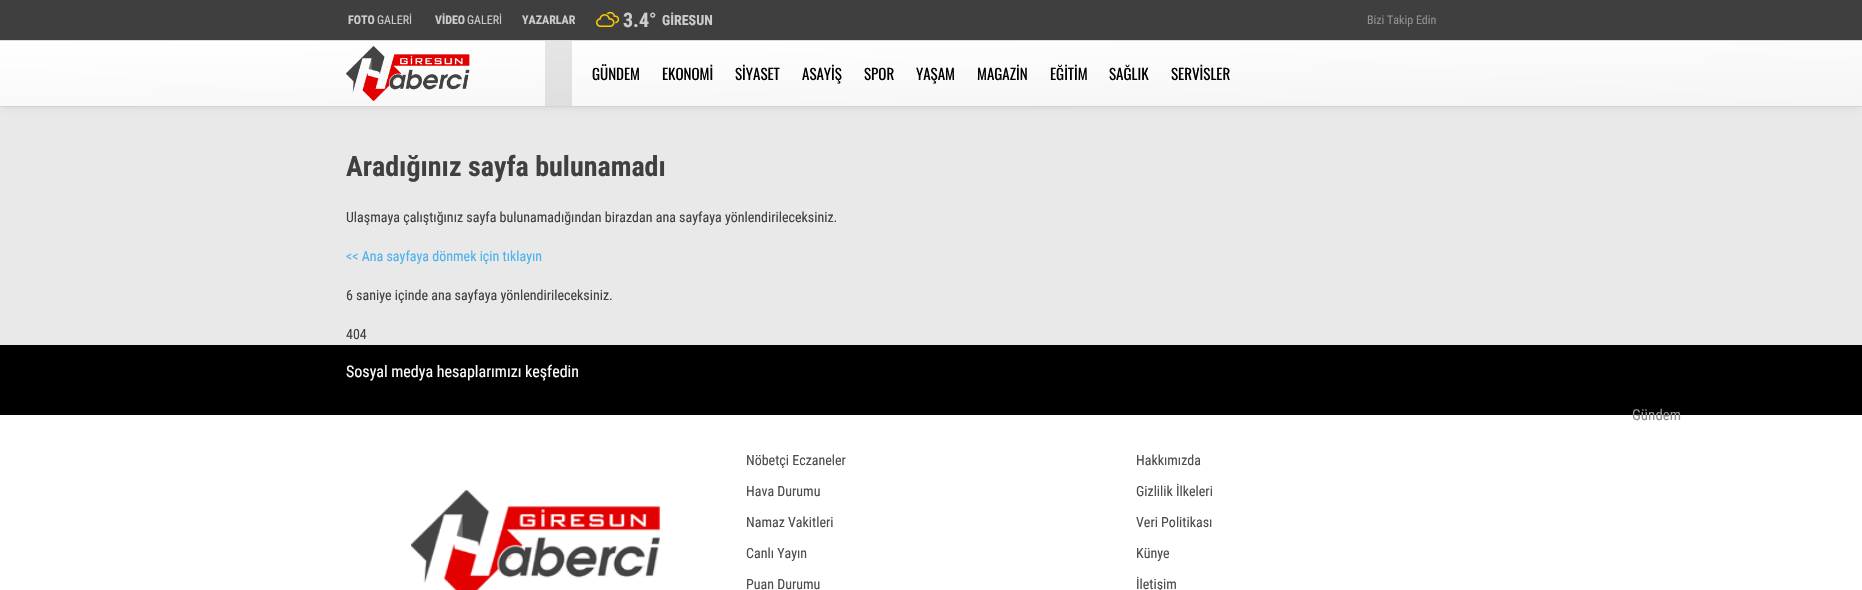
static SkFont makeFont(const char* family, int weight, float size, bool italic = false) {
  SkFontStyle style(weight, SkFontStyle::kNormal_Width,
    italic ? SkFontStyle::kItalic_Slant : SkFontStyle::kUpright_Slant);
  SkFont result(fontMgr->matchFamilyStyle(family, style), size);
  result.setSubpixel(true);
  return result;
}

static void text(SkCanvas* c, const char* s, float x, float y, const SkFont& font, SkColor color) {
  SkPaint ink(SkColor4f::FromColor(color));
  ink.setAntiAlias(true);
  c->drawString(s, x, y, font, ink);
}

static void box(SkCanvas* c, float l, float t, float r, float b, SkColor color) {
  SkPaint ink(SkColor4f::FromColor(color));
  ink.setAntiAlias(true);
  c->drawRect(SkRect::MakeLTRB(l, t, r, b), ink);
}

static void picture(SkCanvas* c, const char* path, float l, float t, float r, float b) {
  auto image = SkImages::DeferredFromEncodedData(SkData::MakeFromFileName(path));
  c->drawImageRect(image, SkRect::MakeLTRB(l, t, r, b), SkSamplingOptions());
}

void draw(SkCanvas* c) {
  SkPaint paint;
  paint.setAntiAlias(true);
  c->clear(0xffe9e9e9);
  box(c, 0, 0, 1862, 40, 0xff3f3f3f);
  box(c, 0, 40, 1862, 41, 0xffdddddd);
  SkFont face1 = makeFont("Roboto Condensed", 700, 12);
  text(c, "FOTO", 348, 24, face1, 0xffcccccc);
  SkFont face2 = makeFont("Roboto Condensed", 400, 12);
  text(c, "GALERİ", 377, 24, face2, 0xffcccccc);
  text(c, "VİDEO", 435, 24, face1, 0xffcccccc);
  text(c, "GALERİ", 467, 24, face2, 0xffcccccc);
  text(c, "YAZARLAR", 522, 24, face1, 0xffcccccc);
  picture(c, "img_01.png", 596, 11, 620, 27);
  SkFont face3 = makeFont("Roboto Condensed", 700, 20);
  text(c, "3.4", 623, 27, face3, 0xffcccccc);
  SkFont face4 = makeFont("Roboto Condensed", 400, 20);
  text(c, "°", 649, 27, face4, 0xffcccccc);
  SkFont face5 = makeFont("Roboto Condensed", 700, 14);
  text(c, "GİRESUN", 662, 25, face5, 0xffcccccc);
  text(c, "Bizi Takip Edin", 1367, 24, face2, 0xff919191);
  paint.setColor(0x1a000000);
  paint.setMaskFilter(SkMaskFilter::MakeBlur(kNormal_SkBlurStyle, 3.5f));
  c->drawRect(SkRect::MakeLTRB(3, 47, 1859, 107), paint);
  paint.setMaskFilter(nullptr);
  {
    const SkColor colors[] = {0xfff5f5f5, 0xffffffff};
    const float stops[] = {0, 1};
    const SkPoint ends[] = {{932, 122}, {930, 25}};
    paint.setShader(SkGradientShader::MakeLinear(ends, colors, stops, 2, SkTileMode::kClamp));
    paint.setAlpha(255);
  }
  c->drawRect(SkRect::MakeLTRB(0, 41, 1862, 106), paint);
  {
    const SkColor colors[] = {0xffdddddd, 0xffe6e6e6};
    const float stops[] = {0, 1};
    const SkPoint ends[] = {{932, 122}, {930, 25}};
    paint.setShader(SkGradientShader::MakeLinear(ends, colors, stops, 2, SkTileMode::kClamp));
    paint.setAlpha(255);
  }
  c->drawRect(SkRect::MakeLTRB(545, 41, 572, 106), paint);
  box(c, 0, 106, 1862, 107, 0xffd3d3d3);
  picture(c, "img_02.png", 346, 46, 470, 101);
  SkFont face6 = makeFont("Oswald", 400, 15);
  text(c, "GÜNDEM", 592, 80, face6, 0xff000000);
  text(c, "EKONOMİ", 662, 80, face6, 0xff000000);
  text(c, "SİYASET", 735, 80, face6, 0xff000000);
  text(c, "ASAYİŞ", 802, 80, face6, 0xff000000);
  text(c, "SPOR", 864, 80, face6, 0xff000000);
  text(c, "YAŞAM", 916, 80, face6, 0xff000000);
  text(c, "MAGAZİN", 977, 80, face6, 0xff000000);
  text(c, "EĞİTİM", 1050, 80, face6, 0xff000000);
  text(c, "SAĞLIK", 1109, 80, face6, 0xff000000);
  text(c, "SERVİSLER", 1171, 80, face6, 0xff000000);
  SkFont face7 = makeFont("Roboto Condensed", 700, 28);
  text(c, "Aradığınız sayfa bulunamadı", 346, 176, face7, 0xff404040);
  SkFont face8 = makeFont("Roboto Condensed", 400, 14);
  text(c, "Ulaşmaya çalıştığınız sayfa bulunamadığından birazdan ana sayfaya yönlendirileceksiniz.", 346, 222, face8, 0xff404040);
  text(c, "<< Ana sayfaya dönmek için tıklayın", 346, 261, face8, 0xff4db2ec);
  text(c, "6 saniye içinde ana sayfaya yönlendirileceksiniz.", 346, 300, face8, 0xff404040);
  text(c, "404", 346, 339, face8, 0xff404040);
  box(c, 0, 345, 1862, 415, 0xff000000);
  SkFont face9 = makeFont("Roboto Condensed", 400, 16);
  text(c, "Sosyal medya hesaplarımızı keşfedin", 346, 377, face9, 0xffffffff);
  box(c, 0, 415, 1862, 590, 0xffffffff);
  picture(c, "img_03.png", 411, 490, 661, 590);
  text(c, "Nöbetçi Eczaneler", 746, 465, face8, 0xff4d4d4d);
  text(c, "Hava Durumu", 746, 496, face8, 0xff4d4d4d);
  text(c, "Namaz Vakitleri", 746, 527, face8, 0xff4d4d4d);
  text(c, "Canlı Yayın", 746, 558, face8, 0xff4d4d4d);
  text(c, "Puan Durumu", 746, 589, face8, 0xff4d4d4d);
  text(c, "Hakkımızda", 1136, 465, face8, 0xff4d4d4d);
  text(c, "Gizlilik İlkeleri", 1136, 496, face8, 0xff4d4d4d);
  text(c, "Veri Politikası", 1136, 527, face8, 0xff4d4d4d);
  text(c, "Künye", 1136, 558, face8, 0xff4d4d4d);
  text(c, "İletişim", 1136, 589, face8, 0xff4d4d4d);
  SkFont face10 = makeFont("Roboto Condensed", 400, 15);
  text(c, "Gündem", 1632, 420, face10, 0xff919191);
}
